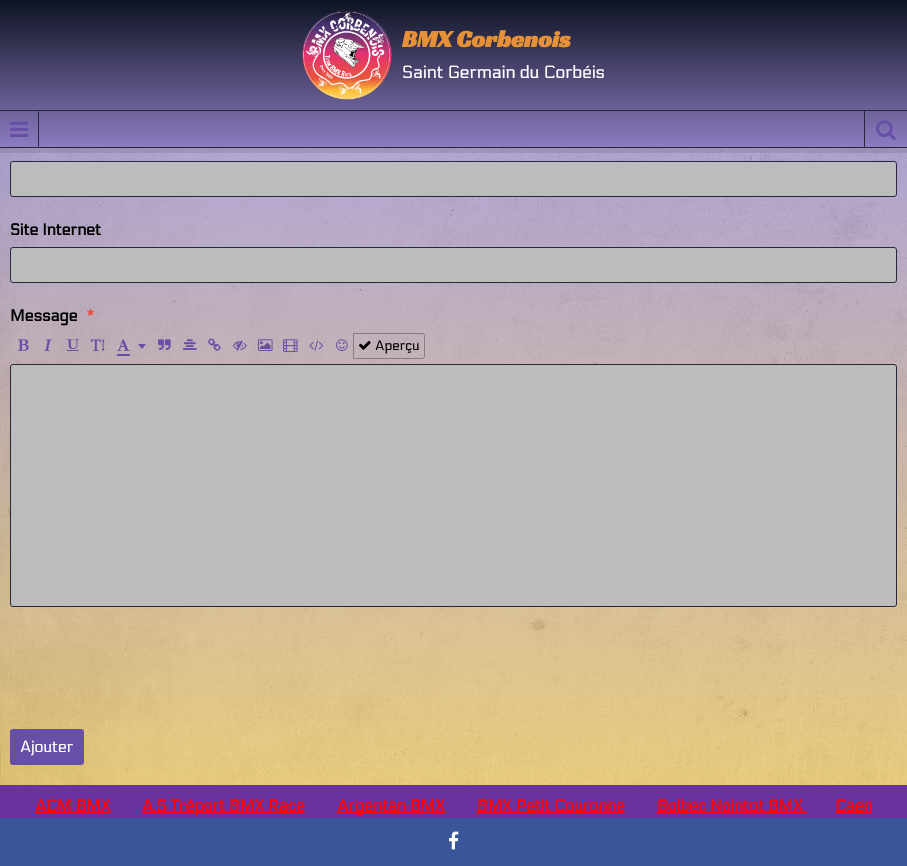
static SkFont makeFont(const char* family, int weight, float size, bool italic = false) {
  SkFontStyle style(weight, SkFontStyle::kNormal_Width,
    italic ? SkFontStyle::kItalic_Slant : SkFontStyle::kUpright_Slant);
  SkFont result(fontMgr->matchFamilyStyle(family, style), size);
  result.setSubpixel(true);
  return result;
}

static void text(SkCanvas* c, const char* s, float x, float y, const SkFont& font, SkColor color) {
  SkPaint ink(SkColor4f::FromColor(color));
  ink.setAntiAlias(true);
  c->drawString(s, x, y, font, ink);
}

static void box(SkCanvas* c, float l, float t, float r, float b, SkColor color) {
  SkPaint ink(SkColor4f::FromColor(color));
  ink.setAntiAlias(true);
  c->drawRect(SkRect::MakeLTRB(l, t, r, b), ink);
}

static void roundBox(SkCanvas* c, float l, float t, float r, float b, float radius, SkColor color) {
  SkPaint ink(SkColor4f::FromColor(color));
  ink.setAntiAlias(true);
  c->drawRoundRect(SkRect::MakeLTRB(l, t, r, b), radius, radius, ink);
}

static void picture(SkCanvas* c, const char* path, float l, float t, float r, float b) {
  auto image = SkImages::DeferredFromEncodedData(SkData::MakeFromFileName(path));
  c->drawImageRect(image, SkRect::MakeLTRB(l, t, r, b), SkSamplingOptions());
}

void draw(SkCanvas* c) {
  SkPaint paint;
  paint.setAntiAlias(true);
  c->clear(0xffffffff);
  picture(c, "img_01.png", 0, 148, 907, 785);
  box(c, 0, 148, 907, 153, 0x1a000000);
  {
    const SkColor colors[] = {0xff0d1322, 0xff8e7cc3};
    const float stops[] = {0, 1};
    const SkPoint ends[] = {{454, 0}, {454, 148}};
    paint.setShader(SkGradientShader::MakeLinear(ends, colors, stops, 2, SkTileMode::kClamp));
    paint.setAlpha(255);
  }
  c->drawRect(SkRect::MakeLTRB(0, 0, 907, 147), paint);
  picture(c, "img_02.png", 302, 10, 392, 100);
  SkFont face1 = makeFont("Racing Sans One", 700, 24);
  text(c, "BMX Corbenois", 402, 47, face1, 0xffe69138);
  SkFont face2 = makeFont("Electrolize", 400, 17.6f);
  text(c, "Saint Germain du Corbéis", 402, 78, face2, 0xffffffff);
  box(c, 0, 110, 907, 111, 0xff242a39);
  box(c, 0, 147, 907, 148, 0xff242a39);
  paint.setShader(nullptr);
  paint.setColor(0xff242a39);
  c->drawPath(SkPathBuilder().moveTo(39, 111).lineTo(39, 147).lineTo(38, 146).lineTo(38, 112).close().detach(), paint);
  picture(c, "img_03.png", 10, 121, 29, 137);
  box(c, 864, 111, 865, 147, 0xff242a39);
  picture(c, "img_04.png", 876, 120, 896, 140);
  paint.setColor(0xffbcbcbc);
  c->drawRoundRect(SkRect::MakeLTRB(10.5f, 161.5f, 896.5f, 196.5f), 2.5f, 2.5f, paint);
  paint.setStyle(SkPaint::kStroke_Style);
  paint.setStrokeWidth(1);
  paint.setColor(0xff242a39);
  c->drawRoundRect(SkRect::MakeLTRB(10.5f, 161.5f, 896.5f, 196.5f), 2.5f, 2.5f, paint);
  SkFont face3 = makeFont("Electrolize", 700, 16);
  text(c, "Site Internet", 10, 235, face3, 0xff000000);
  paint.setStyle(SkPaint::kFill_Style);
  paint.setColor(0xffbcbcbc);
  c->drawRoundRect(SkRect::MakeLTRB(10.5f, 247.5f, 896.5f, 282.5f), 2.5f, 2.5f, paint);
  paint.setStyle(SkPaint::kStroke_Style);
  paint.setColor(0xff242a39);
  c->drawRoundRect(SkRect::MakeLTRB(10.5f, 247.5f, 896.5f, 282.5f), 2.5f, 2.5f, paint);
  text(c, "Message", 10, 321, face3, 0xff000000);
  text(c, "*", 86, 321, face3, 0xfff44336);
  picture(c, "img_05.png", 18, 339, 29, 351);
  picture(c, "img_06.png", 44, 339, 52, 351);
  picture(c, "img_07.png", 67, 339, 79, 351);
  picture(c, "img_08.png", 91, 339, 105, 351);
  picture(c, "img_09.png", 117, 339, 130, 351);
  box(c, 117, 354, 130, 356, 0xff674ea7);
  paint.setStyle(SkPaint::kFill_Style);
  paint.setColor(0xff674ea7);
  c->drawPath(SkPathBuilder().moveTo(138, 344).lineTo(146, 344).lineTo(142, 349).close().detach(), paint);
  picture(c, "img_10.png", 158, 339, 171, 350);
  picture(c, "img_11.png", 183, 339, 197, 350);
  picture(c, "img_12.png", 208, 338, 221, 351);
  picture(c, "img_13.png", 233, 340, 247, 351);
  picture(c, "img_14.png", 258, 339, 273, 351);
  picture(c, "img_15.png", 283, 339, 298, 352);
  picture(c, "img_16.png", 309, 340, 324, 351);
  picture(c, "img_17.png", 336, 339, 348, 351);
  picture(c, "img_18.png", 359, 340, 371, 350);
  paint.setStyle(SkPaint::kStroke_Style);
  paint.setColor(0x4d000000);
  c->drawPath(SkPathBuilder().moveTo(353.5f, 333.5f).lineTo(422, 333.5f).cubicTo(423.5f, 333.5f, 424.5f, 334.5f, 424.5f, 336).lineTo(424.5f, 356).cubicTo(424.5f, 357.5f, 423.5f, 358.5f, 422, 358.5f).lineTo(353.5f, 358.5f).close().detach(), paint);
  SkFont face4 = makeFont("Electrolize", 400, 13.5f);
  text(c, "Aperçu", 375, 350, face4, 0xff000000);
  paint.setStyle(SkPaint::kFill_Style);
  paint.setColor(0xffbcbcbc);
  c->drawRoundRect(SkRect::MakeLTRB(10.5f, 364.5f, 896.5f, 606.5f), 2.5f, 2.5f, paint);
  paint.setStyle(SkPaint::kStroke_Style);
  paint.setColor(0xff242a39);
  c->drawRoundRect(SkRect::MakeLTRB(10.5f, 364.5f, 896.5f, 606.5f), 2.5f, 2.5f, paint);
  roundBox(c, 10, 729, 84, 765, 3, 0xff674ea7);
  SkFont face5 = makeFont("Electrolize", 400, 16);
  text(c, "Ajouter", 20, 752, face5, 0xffffffff);
  box(c, 0, 785, 907, 818, 0xff6a329f);
  text(c, "ACM BMX", 35, 811, face3, 0xffff0000);
  box(c, 35, 812, 110, 813, 0xffff0000);
  box(c, 142, 812, 305, 813, 0xffff0000);
  text(c, "A.S Tréport BMX Race", 142, 811, face3, 0xffff0000);
  box(c, 337, 812, 445, 813, 0xffff0000);
  text(c, "Argentan BMX", 337, 811, face3, 0xffff0000);
  text(c, "BMX Petit Couronne", 477, 811, face3, 0xffff0000);
  box(c, 477, 812, 625, 813, 0xffff0000);
  text(c, "Bolbec Nointot BMX", 657, 811, face3, 0xffff0000);
  box(c, 657, 812, 807, 813, 0xffff0000);
  text(c, "Caen", 835, 811, face3, 0xffff0000);
  box(c, 835, 812, 872, 813, 0xffff0000);
  box(c, 0, 818, 907, 866, 0xff385699);
  picture(c, "img_19.png", 449, 831, 459, 850);
}
